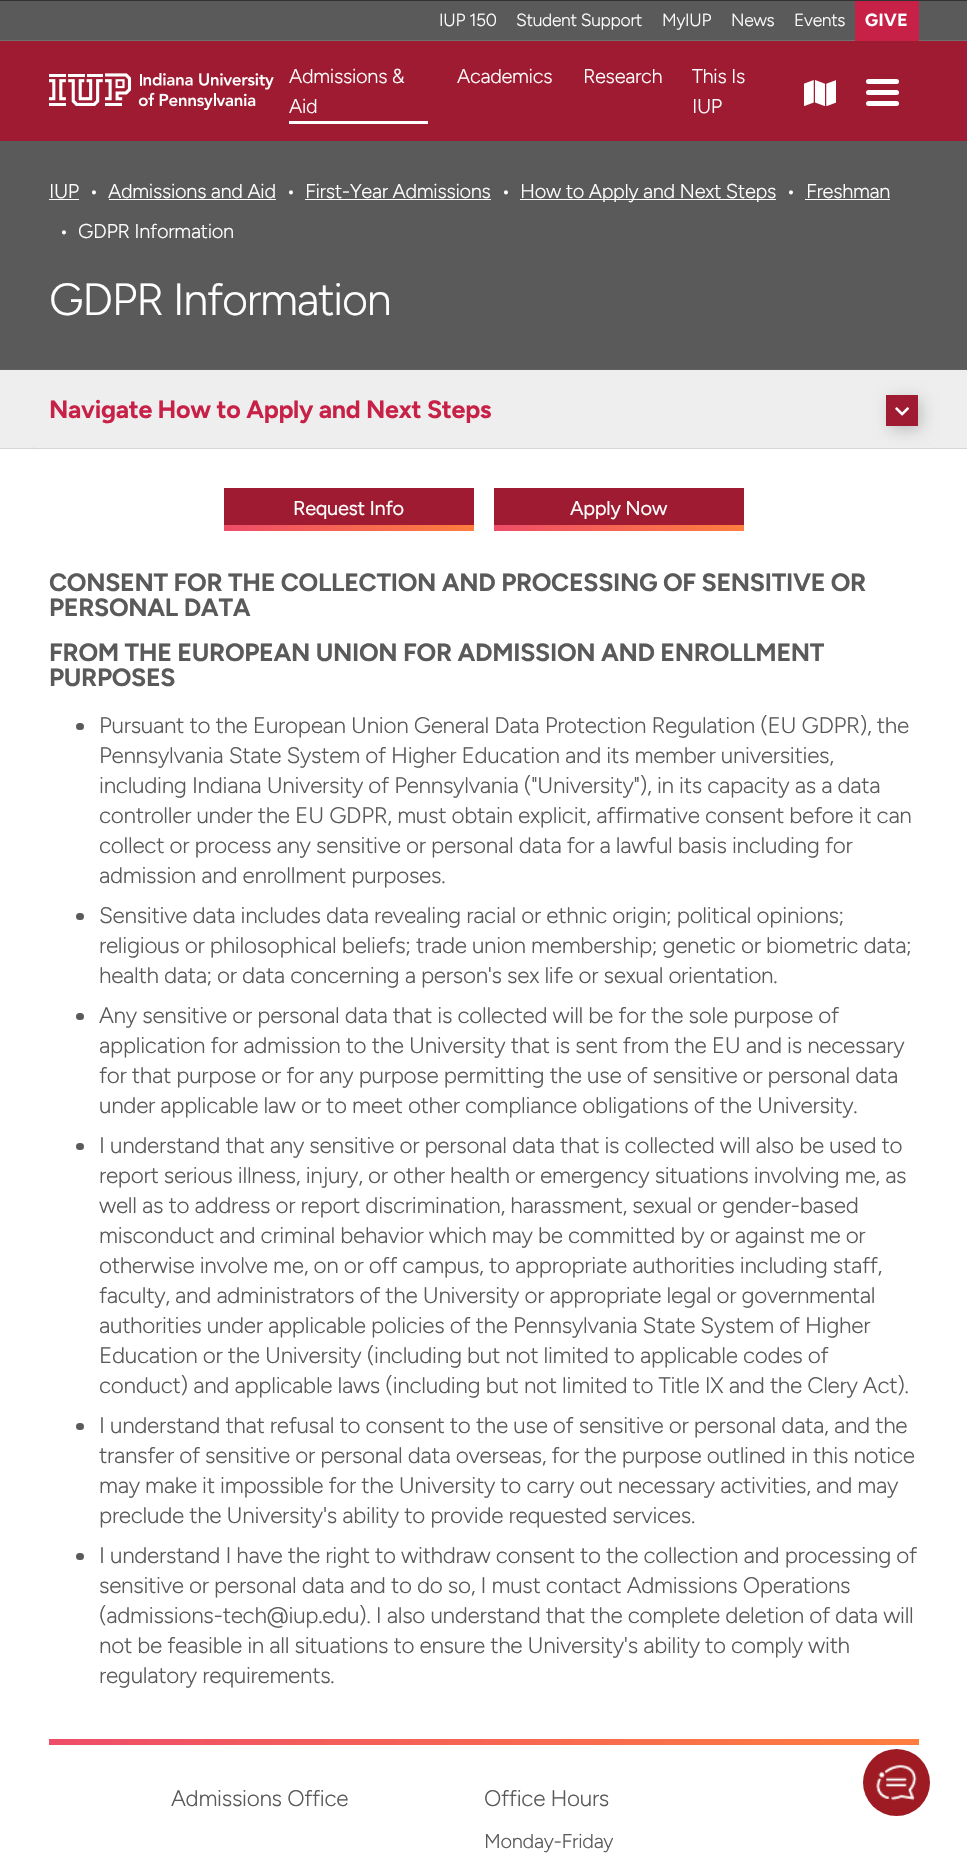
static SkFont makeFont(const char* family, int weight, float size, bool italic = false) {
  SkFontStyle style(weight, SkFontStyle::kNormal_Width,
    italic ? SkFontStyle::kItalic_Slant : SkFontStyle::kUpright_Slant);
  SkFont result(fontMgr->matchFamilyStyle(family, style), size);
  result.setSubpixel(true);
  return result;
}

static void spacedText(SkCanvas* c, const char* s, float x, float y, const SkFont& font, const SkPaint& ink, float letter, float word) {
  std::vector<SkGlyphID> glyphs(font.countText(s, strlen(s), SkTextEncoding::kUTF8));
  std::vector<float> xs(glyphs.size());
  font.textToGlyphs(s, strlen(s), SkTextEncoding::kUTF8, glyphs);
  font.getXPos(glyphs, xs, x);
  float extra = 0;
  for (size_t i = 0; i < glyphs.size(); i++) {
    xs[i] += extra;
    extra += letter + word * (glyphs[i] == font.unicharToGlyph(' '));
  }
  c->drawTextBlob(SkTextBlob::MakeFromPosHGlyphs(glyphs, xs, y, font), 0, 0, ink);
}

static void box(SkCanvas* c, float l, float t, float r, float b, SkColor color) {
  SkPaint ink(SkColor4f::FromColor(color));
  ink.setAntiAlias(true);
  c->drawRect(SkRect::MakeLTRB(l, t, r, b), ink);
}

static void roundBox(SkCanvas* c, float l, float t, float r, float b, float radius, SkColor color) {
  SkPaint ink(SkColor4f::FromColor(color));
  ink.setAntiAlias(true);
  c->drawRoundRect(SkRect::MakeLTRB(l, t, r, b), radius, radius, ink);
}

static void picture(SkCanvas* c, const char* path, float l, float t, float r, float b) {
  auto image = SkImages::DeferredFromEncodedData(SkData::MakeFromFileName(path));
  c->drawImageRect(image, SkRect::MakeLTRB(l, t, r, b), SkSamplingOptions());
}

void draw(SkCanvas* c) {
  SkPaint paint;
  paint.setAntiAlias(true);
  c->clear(0xffffffff);
  box(c, 0, 0, 967, 1, 0xff313131);
  box(c, 0, 1, 967, 40, 0xff5a5a5a);
  box(c, 0, 40, 967, 41, 0xff707070);
  SkFont face1 = makeFont("Figtree", 300, 17.5f);
  paint.setColor(0xffffffff);
  spacedText(c, "IUP 150", 439, 26, face1, paint, -0.3f, 0);
  spacedText(c, "Student Support", 516, 26, face1, paint, -0.3f, 0);
  spacedText(c, "MyIUP", 662, 26, face1, paint, -0.3f, 0);
  spacedText(c, "News", 731, 26, face1, paint, -0.3f, 0);
  spacedText(c, "Events", 794, 26, face1, paint, -0.3f, 0);
  box(c, 855, 1, 919, 41, 0xffc82147);
  SkFont face2 = makeFont("Figtree", 700, 17.5f);
  spacedText(c, "GIVE", 865, 26, face2, paint, 0.5f, 0);
  box(c, 0, 41, 967, 141, 0xff9e1b32);
  picture(c, "img_01.png", 49, 73, 274, 110);
  SkFont face3 = makeFont("Figtree", 300, 20);
  spacedText(c, "Admissions &", 289, 83, face3, paint, -0.3f, 0);
  spacedText(c, "Aid", 289, 113, face3, paint, -0.3f, 0);
  box(c, 289, 121, 428, 124, 0xffffffff);
  spacedText(c, "Academics", 457, 83, face3, paint, -0.3f, 0);
  spacedText(c, "Research", 583, 83, face3, paint, -0.3f, 0);
  spacedText(c, "This Is", 692, 83, face3, paint, -0.3f, 0);
  spacedText(c, "IUP", 692, 113, face3, paint, -0.3f, 0);
  picture(c, "img_02.png", 804, 80, 836, 106);
  roundBox(c, 866, 79, 899, 84, 2.5f, 0xffffffff);
  roundBox(c, 866, 90, 899, 95, 2.5f, 0xffffffff);
  roundBox(c, 866, 101, 899, 106, 2.5f, 0xffffffff);
  box(c, 0, 141, 967, 369, 0xff5a5a5a);
  box(c, 0, 369, 967, 370, 0xff606060);
  spacedText(c, "IUP", 49, 198, face3, paint, -0.3f, 0);
  box(c, 49, 199, 79, 200, 0xffffffff);
  spacedText(c, "•", 89, 198, face3, paint, -0.3f, 0);
  spacedText(c, "Admissions and Aid", 108, 198, face3, paint, -0.3f, 0);
  box(c, 109, 199, 276, 200, 0xffffffff);
  spacedText(c, "•", 286, 198, face3, paint, -0.3f, 0);
  spacedText(c, "First-Year Admissions", 305, 198, face3, paint, -0.3f, 0);
  box(c, 305, 199, 491, 200, 0xffffffff);
  spacedText(c, "•", 501, 198, face3, paint, -0.3f, 0);
  box(c, 520, 199, 776, 200, 0xffffffff);
  spacedText(c, "How to Apply and Next Steps", 520, 198, face3, paint, -0.3f, 0);
  spacedText(c, "•", 786, 198, face3, paint, -0.3f, 0);
  spacedText(c, "Freshman", 806, 198, face3, paint, -0.3f, 0);
  box(c, 805, 199, 890, 200, 0xffffffff);
  spacedText(c, "•", 59, 238, face3, paint, -0.3f, 0);
  spacedText(c, "GDPR Information", 78, 238, face3, paint, -0.3f, 0);
  SkFont face4 = makeFont("Figtree", 300, 45);
  spacedText(c, "GDPR Information", 49, 315, face4, paint, -1.25f, 0);
  box(c, 0, 370, 967, 448, 0xffeeeeee);
  box(c, 0, 448, 967, 449, 0xffd7d7d7);
  SkFont face5 = makeFont("Figtree", 700, 25);
  paint.setColor(0xffc82147);
  spacedText(c, "Navigate How to Apply and Next Steps", 49, 418, face5, paint, -0.3f, 0);
  paint.setColor(0x33000000);
  paint.setMaskFilter(SkMaskFilter::MakeBlur(kNormal_SkBlurStyle, 8));
  c->drawRect(SkRect::MakeLTRB(890, 399, 921, 430), paint);
  paint.setMaskFilter(nullptr);
  box(c, 886, 395, 918, 426, 0xff9e1b32);
  picture(c, "img_03.png", 895, 407, 909, 416);
  box(c, 33, 448, 935, 449, 0xffeeeeee);
  paint.setColor(0xffd7d7d7);
  c->drawPath(SkPathBuilder().moveTo(935, 447.5f).lineTo(935, 449).lineTo(934, 447.5f).close().detach(), paint);
  paint.setColor(0x337a7a7a);
  c->drawPath(SkPathBuilder().moveTo(935, 449).lineTo(32, 449).lineTo(34, 448).lineTo(934, 448).close().detach(), paint);
  c->drawPath(SkPathBuilder().moveTo(32.5f, 449).lineTo(32.5f, 447.5f).lineTo(34, 447.5f).close().detach(), paint);
  box(c, 224, 488, 474, 525, 0xff9e1b32);
  SkFont face6 = makeFont("Figtree", 400, 20);
  paint.setColor(0xffffffff);
  spacedText(c, "Request Info", 293, 515, face6, paint, -0.3f, 0);
  {
    const SkColor colors[] = {0xffee4d68, 0xfffe7e3e};
    const float stops[] = {0, 1};
    const SkPoint ends[] = {{224, 528}, {474, 528}};
    paint.setShader(SkGradientShader::MakeLinear(ends, colors, stops, 2, SkTileMode::kClamp));
    paint.setAlpha(255);
  }
  c->drawRect(SkRect::MakeLTRB(224, 525, 474, 531), paint);
  box(c, 494, 488, 744, 525, 0xff9e1b32);
  paint.setShader(nullptr);
  paint.setColor(0xffffffff);
  spacedText(c, "Apply Now", 570, 515, face6, paint, -0.3f, 0);
  {
    const SkColor colors[] = {0xffee4d68, 0xfffe7e3e};
    const float stops[] = {0, 1};
    const SkPoint ends[] = {{494, 528}, {744, 528}};
    paint.setShader(SkGradientShader::MakeLinear(ends, colors, stops, 2, SkTileMode::kClamp));
    paint.setAlpha(255);
  }
  c->drawRect(SkRect::MakeLTRB(494, 525, 744, 531), paint);
  paint.setShader(nullptr);
  paint.setColor(0xff5a5a5a);
  spacedText(c, "CONSENT FOR THE COLLECTION AND PROCESSING OF SENSITIVE OR", 49, 591, face5, paint, -0.3f, 0);
  spacedText(c, "PERSONAL DATA", 49, 616, face5, paint, -0.3f, 0);
  spacedText(c, "FROM THE EUROPEAN UNION FOR ADMISSION AND ENROLLMENT", 49, 661, face5, paint, -0.3f, 0);
  spacedText(c, "PURPOSES", 49, 686, face5, paint, -0.3f, 0);
  roundBox(c, 76, 723, 84, 730, 3.5f, 0xff5a5a5a);
  SkFont face7 = makeFont("Figtree", 300, 22.5f);
  spacedText(c, "Pursuant to the European Union General Data Protection Regulation (EU GDPR), the", 99, 733, face7, paint, -0.3f, 0);
  spacedText(c, "Pennsylvania State System of Higher Education and its member universities,", 99, 763, face7, paint, -0.3f, 0);
  spacedText(c, "including Indiana University of Pennsylvania (\"University\"), in its capacity as a data", 99, 793, face7, paint, -0.3f, 0);
  spacedText(c, "controller under the EU GDPR, must obtain explicit, affirmative consent before it can", 99, 823, face7, paint, -0.3f, 0);
  spacedText(c, "collect or process any sensitive or personal data for a lawful basis including for", 99, 853, face7, paint, -0.3f, 0);
  spacedText(c, "admission and enrollment purposes.", 99, 883, face7, paint, -0.3f, 0);
  roundBox(c, 76, 913, 84, 920, 3.5f, 0xff5a5a5a);
  spacedText(c, "Sensitive data includes data revealing racial or ethnic origin; political opinions;", 99, 923, face7, paint, -0.3f, 0);
  spacedText(c, "religious or philosophical beliefs; trade union membership; genetic or biometric data;", 99, 953, face7, paint, -0.3f, 0);
  spacedText(c, "health data; or data concerning a person's sex life or sexual orientation.", 99, 983, face7, paint, -0.3f, 0);
  roundBox(c, 76, 1013, 84, 1020, 3.5f, 0xff5a5a5a);
  spacedText(c, "Any sensitive or personal data that is collected will be for the sole purpose of", 99, 1023, face7, paint, -0.3f, 0);
  spacedText(c, "application for admission to the University that is sent from the EU and is necessary", 99, 1053, face7, paint, -0.3f, 0);
  spacedText(c, "for that purpose or for any purpose permitting the use of sensitive or personal data", 99, 1083, face7, paint, -0.3f, 0);
  spacedText(c, "under applicable law or to meet other compliance obligations of the University.", 99, 1113, face7, paint, -0.3f, 0);
  roundBox(c, 76, 1143, 84, 1150, 3.5f, 0xff5a5a5a);
  spacedText(c, "I understand that any sensitive or personal data that is collected will also be used to", 99, 1153, face7, paint, -0.3f, 0);
  spacedText(c, "report serious illness, injury, or other health or emergency situations involving me, as", 99, 1183, face7, paint, -0.3f, 0);
  spacedText(c, "well as to address or report discrimination, harassment, sexual or gender-based", 99, 1213, face7, paint, -0.3f, 0);
  spacedText(c, "misconduct and criminal behavior which may be committed by or against me or", 99, 1243, face7, paint, -0.3f, 0);
  spacedText(c, "otherwise involve me, on or off campus, to appropriate authorities including staff,", 99, 1273, face7, paint, -0.3f, 0);
  spacedText(c, "faculty, and administrators of the University or appropriate legal or governmental", 99, 1303, face7, paint, -0.3f, 0);
  spacedText(c, "authorities under applicable policies of the Pennsylvania State System of Higher", 99, 1333, face7, paint, -0.3f, 0);
  spacedText(c, "Education or the University (including but not limited to applicable codes of", 99, 1363, face7, paint, -0.3f, 0);
  spacedText(c, "conduct) and applicable laws (including but not limited to Title IX and the Clery Act).", 99, 1393, face7, paint, -0.3f, 0);
  roundBox(c, 76, 1423, 84, 1430, 3.5f, 0xff5a5a5a);
  spacedText(c, "I understand that refusal to consent to the use of sensitive or personal data, and the", 99, 1433, face7, paint, -0.3f, 0);
  spacedText(c, "transfer of sensitive or personal data overseas, for the purpose outlined in this notice", 99, 1463, face7, paint, -0.3f, 0);
  spacedText(c, "may make it impossible for the University to carry out necessary activities, and may", 99, 1493, face7, paint, -0.3f, 0);
  spacedText(c, "preclude the University's ability to provide requested services.", 99, 1523, face7, paint, -0.3f, 0);
  roundBox(c, 76, 1553, 84, 1560, 3.5f, 0xff5a5a5a);
  spacedText(c, "I understand I have the right to withdraw consent to the collection and processing of", 99, 1563, face7, paint, -0.3f, 0);
  spacedText(c, "sensitive or personal data and to do so, I must contact Admissions Operations", 99, 1593, face7, paint, -0.3f, 0);
  spacedText(c, "(admissions-tech@iup.edu). I also understand that the complete deletion of data will", 99, 1623, face7, paint, -0.3f, 0);
  spacedText(c, "not be feasible in all situations to ensure the University's ability to comply with", 99, 1653, face7, paint, -0.3f, 0);
  spacedText(c, "regulatory requirements.", 99, 1683, face7, paint, -0.3f, 0);
  {
    const SkColor colors[] = {0xffee4d68, 0xfffe7e3e};
    const float stops[] = {0, 1};
    const SkPoint ends[] = {{49, 1742}, {919, 1742}};
    paint.setShader(SkGradientShader::MakeLinear(ends, colors, stops, 2, SkTileMode::kClamp));
    paint.setAlpha(255);
  }
  c->drawRect(SkRect::MakeLTRB(49, 1739, 919, 1745), paint);
  paint.setShader(nullptr);
  paint.setColor(0xff5a5a5a);
  spacedText(c, "Admissions Office", 171, 1806, face7, paint, -0.3f, 0);
  spacedText(c, "Office Hours", 484, 1806, face7, paint, -0.3f, 0);
  spacedText(c, "Monday-Friday", 484, 1848, face3, paint, -0.3f, 0);
  paint.setColor(0xff9e1b23);
  c->drawCircle(896.5f, 1782.5f, 33.5f, paint);
  picture(c, "img_04.png", 876, 1764, 917, 1801);
}
